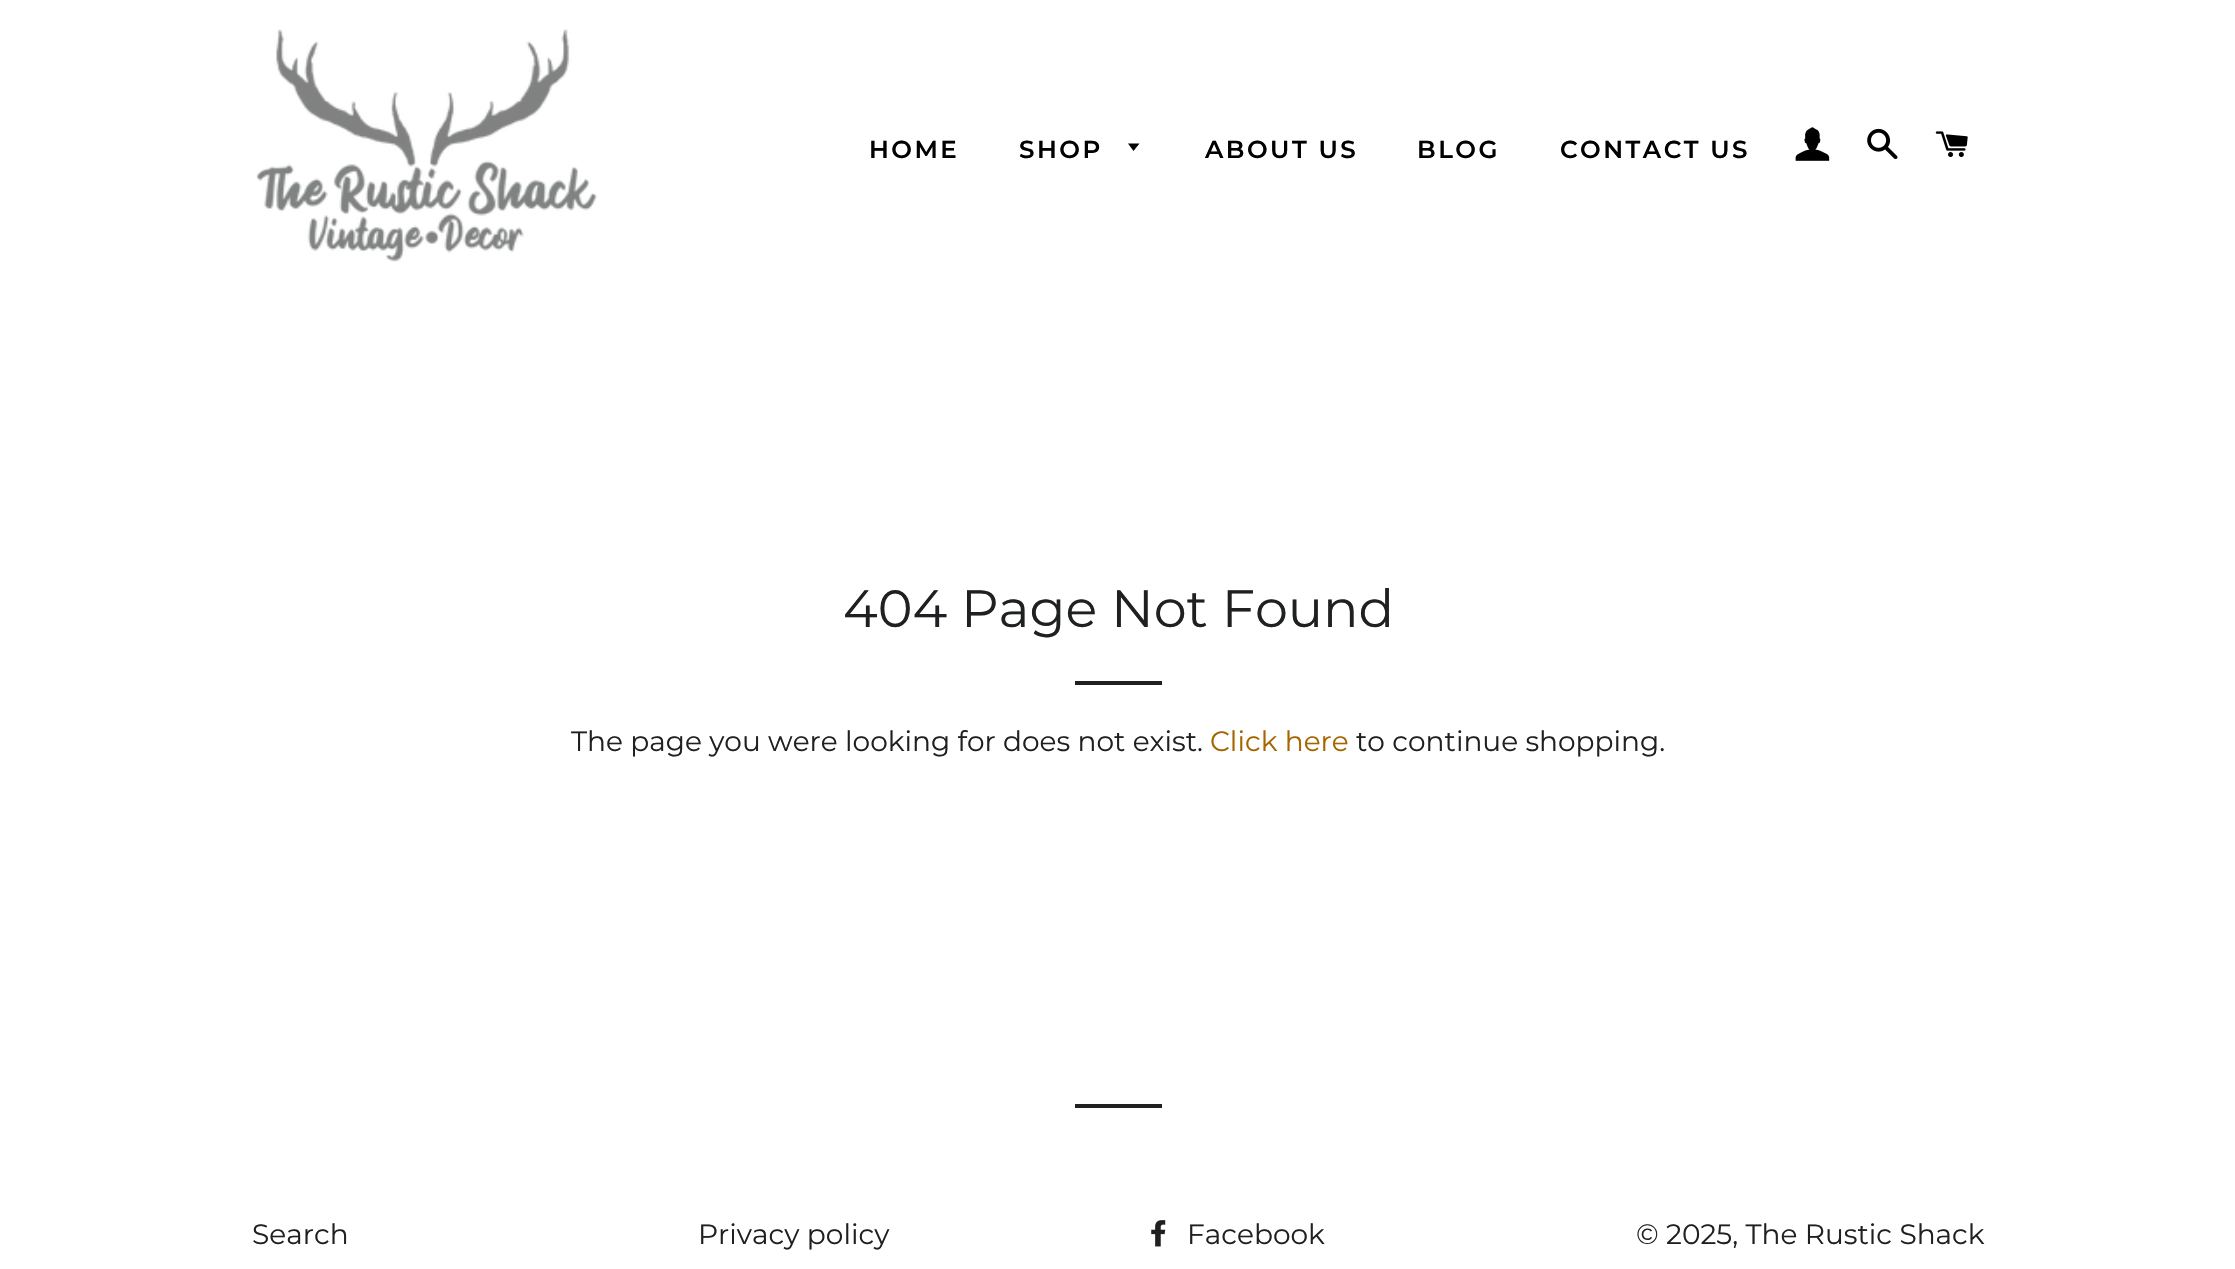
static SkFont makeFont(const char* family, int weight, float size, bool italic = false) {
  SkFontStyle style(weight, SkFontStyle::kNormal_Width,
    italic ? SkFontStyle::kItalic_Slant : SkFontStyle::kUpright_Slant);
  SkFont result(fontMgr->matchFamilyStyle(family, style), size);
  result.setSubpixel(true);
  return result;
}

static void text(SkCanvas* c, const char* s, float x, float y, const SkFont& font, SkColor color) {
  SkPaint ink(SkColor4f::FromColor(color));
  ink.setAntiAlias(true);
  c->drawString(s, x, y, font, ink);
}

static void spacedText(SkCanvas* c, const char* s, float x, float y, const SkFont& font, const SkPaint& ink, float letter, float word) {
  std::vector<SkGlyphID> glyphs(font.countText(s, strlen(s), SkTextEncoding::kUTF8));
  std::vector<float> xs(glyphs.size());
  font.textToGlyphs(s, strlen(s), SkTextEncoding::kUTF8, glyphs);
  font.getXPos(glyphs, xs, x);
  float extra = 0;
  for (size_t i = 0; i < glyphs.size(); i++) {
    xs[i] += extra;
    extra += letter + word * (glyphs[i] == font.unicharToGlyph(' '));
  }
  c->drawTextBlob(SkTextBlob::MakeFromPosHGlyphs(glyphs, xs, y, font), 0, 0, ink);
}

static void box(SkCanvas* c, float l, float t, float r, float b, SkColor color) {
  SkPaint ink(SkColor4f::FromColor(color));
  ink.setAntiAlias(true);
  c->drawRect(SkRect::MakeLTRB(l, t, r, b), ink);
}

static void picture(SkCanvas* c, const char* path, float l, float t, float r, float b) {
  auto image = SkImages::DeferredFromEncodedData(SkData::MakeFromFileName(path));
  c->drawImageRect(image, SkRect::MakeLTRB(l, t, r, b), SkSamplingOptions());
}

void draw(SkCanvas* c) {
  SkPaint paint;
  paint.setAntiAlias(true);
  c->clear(0xffffffff);
  picture(c, "img_01.png", 256, 29, 598, 262);
  SkFont face1 = makeFont("Montserrat", 600, 24.5f);
  paint.setColor(0xff000000);
  spacedText(c, "HOME", 869, 158, face1, paint, 2.5f, 0);
  spacedText(c, "SHOP", 1019, 158, face1, paint, 2.5f, 0);
  c->drawPath(SkPathBuilder().moveTo(1128, 143.5f).lineTo(1133.5f, 151).lineTo(1139.5f, 143.5f).close().detach(), paint);
  spacedText(c, "ABOUT US", 1205, 158, face1, paint, 2.5f, 0);
  spacedText(c, "BLOG", 1417, 158, face1, paint, 2.5f, 0);
  spacedText(c, "CONTACT US", 1560, 158, face1, paint, 2.5f, 0);
  picture(c, "img_02.png", 1795, 127, 1830, 161);
  picture(c, "img_03.png", 1867, 128, 1898, 160);
  picture(c, "img_04.png", 1935, 131, 1968, 157);
  SkFont face2 = makeFont("Montserrat", 400, 52.5f);
  text(c, "404 Page Not Found", 843, 627, face2, 0xff1f2021);
  box(c, 1075, 681, 1162, 685, 0xff1f2021);
  SkFont face3 = makeFont("Montserrat", 400, 28);
  text(c, "The page you were looking for does not exist.", 571, 751, face3, 0xff1f2021);
  text(c, "Click here", 1210, 751, face3, 0xffa56600);
  text(c, "to continue shopping.", 1356, 751, face3, 0xff1f2021);
  box(c, 1075, 1104, 1162, 1108, 0xff1f2021);
  text(c, "Search", 252, 1244, face3, 0xff1f2021);
  text(c, "Privacy policy", 698, 1244, face3, 0xff1f2021);
  picture(c, "img_05.png", 1151, 1220, 1166, 1247);
  text(c, "Facebook", 1187, 1244, face3, 0xff1f2021);
  text(c, "© 2025, The Rustic Shack", 1636, 1244, face3, 0xff1f2021);
}
